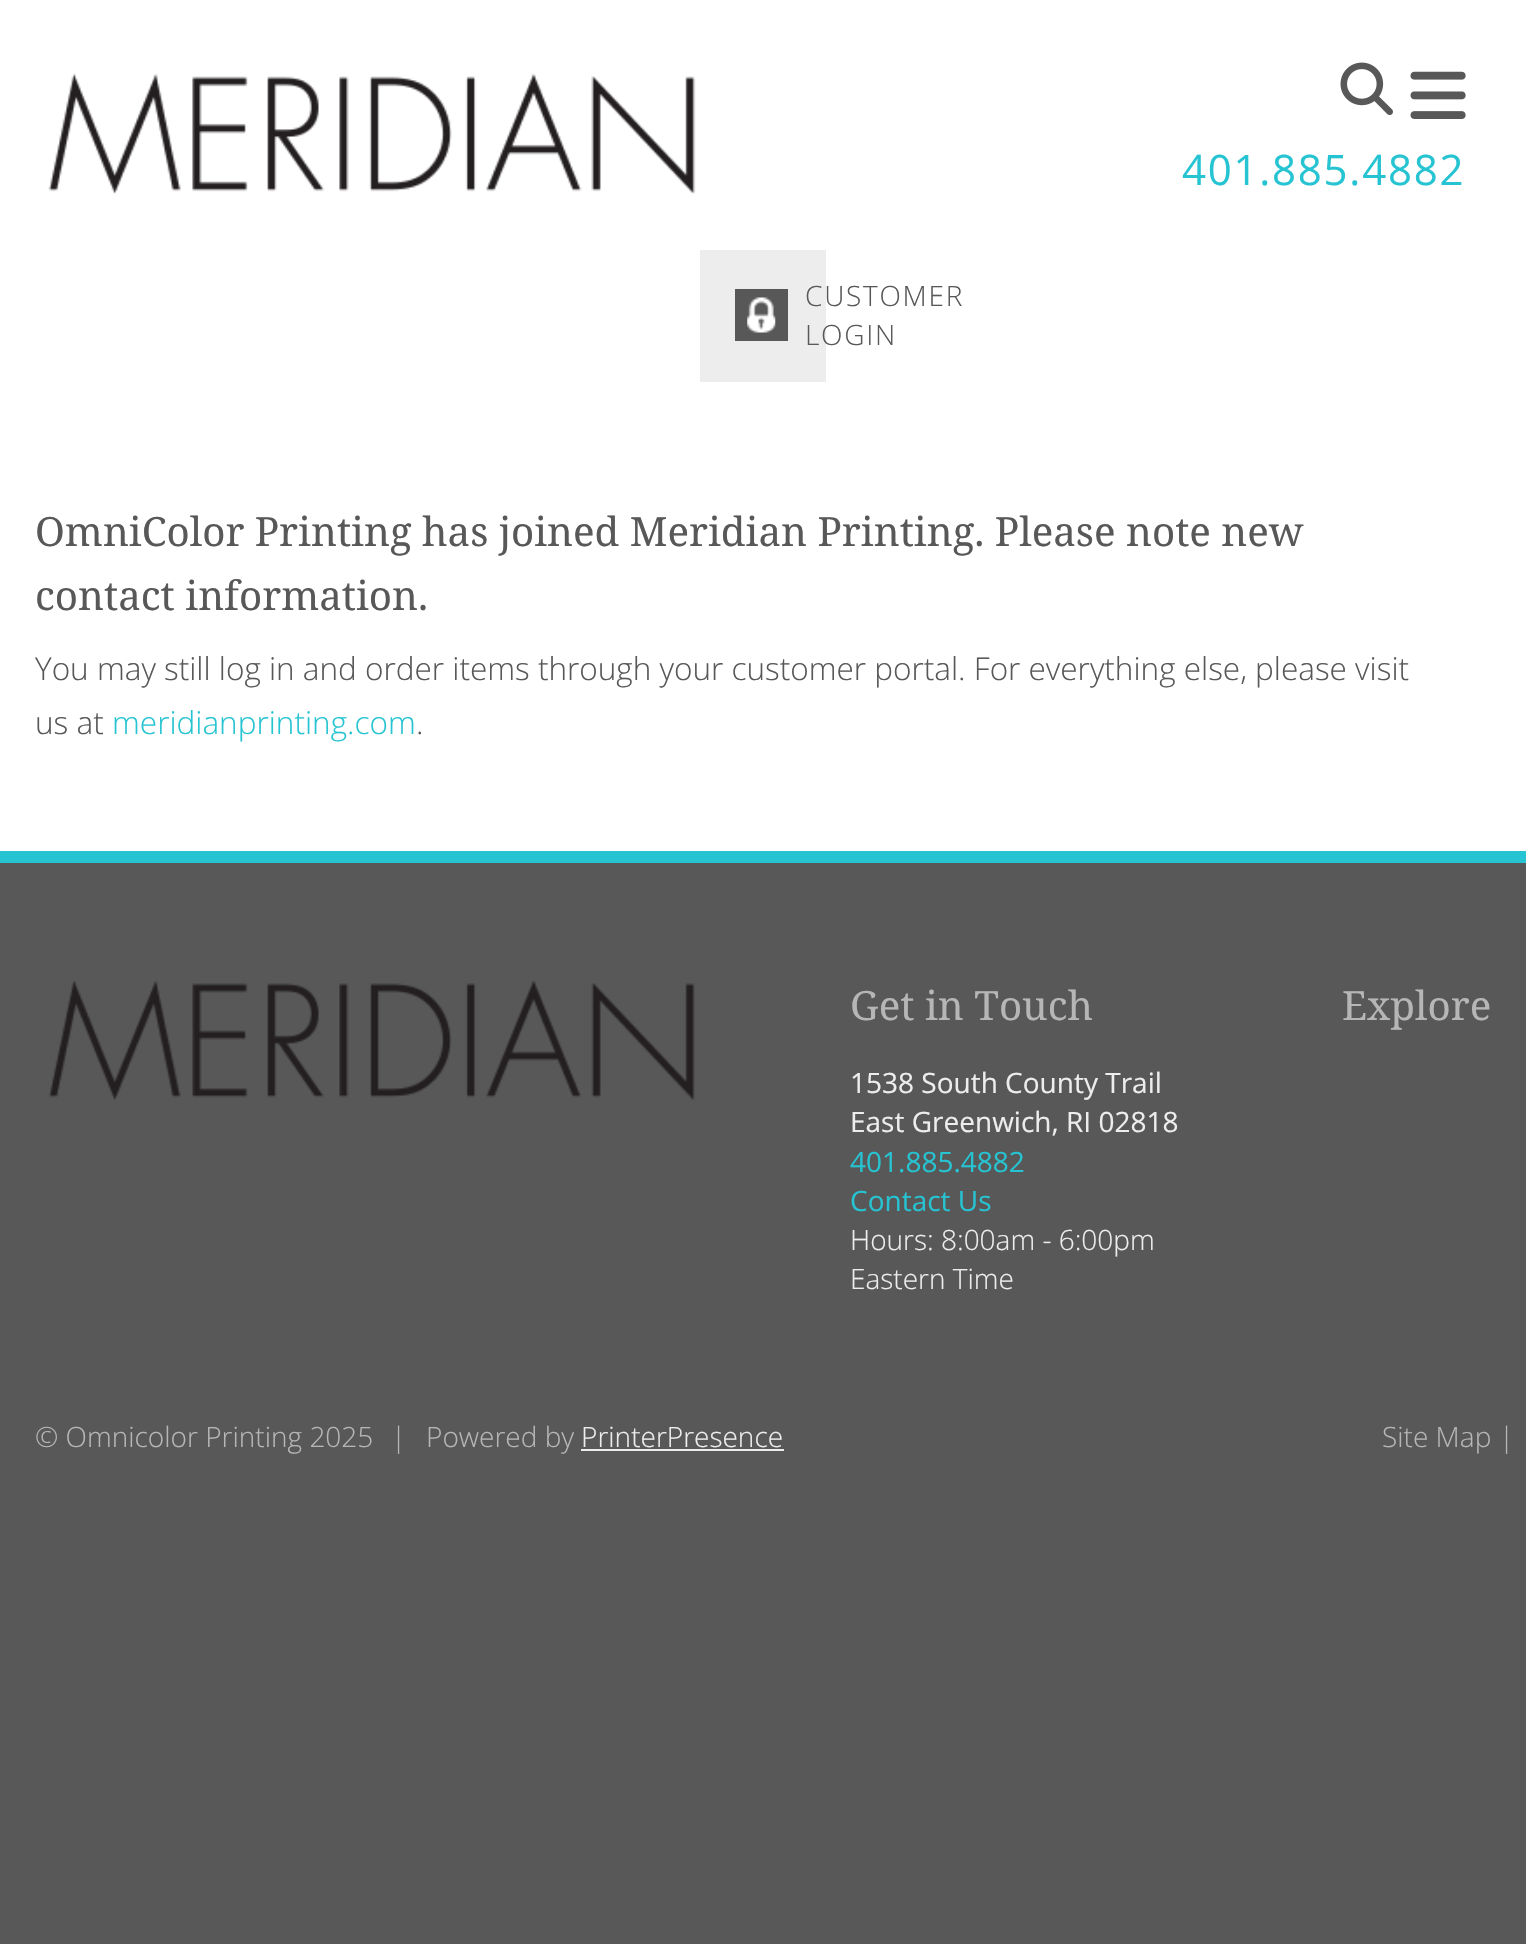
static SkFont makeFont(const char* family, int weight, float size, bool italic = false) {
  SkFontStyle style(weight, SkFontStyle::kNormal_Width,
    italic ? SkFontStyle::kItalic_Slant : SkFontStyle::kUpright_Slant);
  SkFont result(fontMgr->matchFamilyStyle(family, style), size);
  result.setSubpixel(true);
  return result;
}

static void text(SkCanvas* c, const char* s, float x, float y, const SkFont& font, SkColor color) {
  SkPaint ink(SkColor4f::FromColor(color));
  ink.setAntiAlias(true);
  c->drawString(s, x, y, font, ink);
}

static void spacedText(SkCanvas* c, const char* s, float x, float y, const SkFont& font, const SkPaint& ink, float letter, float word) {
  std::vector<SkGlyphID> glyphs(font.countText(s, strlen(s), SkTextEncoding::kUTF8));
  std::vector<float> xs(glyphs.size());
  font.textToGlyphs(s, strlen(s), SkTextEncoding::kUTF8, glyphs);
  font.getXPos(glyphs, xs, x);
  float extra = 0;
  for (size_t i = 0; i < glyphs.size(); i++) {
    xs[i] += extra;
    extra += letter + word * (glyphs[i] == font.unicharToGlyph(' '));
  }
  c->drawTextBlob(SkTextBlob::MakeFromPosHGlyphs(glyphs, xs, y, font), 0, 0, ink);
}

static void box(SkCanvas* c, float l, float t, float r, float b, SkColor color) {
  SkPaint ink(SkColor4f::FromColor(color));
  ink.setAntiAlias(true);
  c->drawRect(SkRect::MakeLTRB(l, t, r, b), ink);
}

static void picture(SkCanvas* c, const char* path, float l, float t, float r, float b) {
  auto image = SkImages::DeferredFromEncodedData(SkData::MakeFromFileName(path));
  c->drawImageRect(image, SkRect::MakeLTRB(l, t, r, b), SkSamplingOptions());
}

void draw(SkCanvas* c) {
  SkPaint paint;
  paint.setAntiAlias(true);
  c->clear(0xff585858);
  box(c, 0, 0, 1526, 851, 0xffffffff);
  picture(c, "img_01.png", 48, 73, 696, 195);
  picture(c, "img_02.png", 1340, 62, 1393, 115);
  picture(c, "img_03.png", 1410, 71, 1466, 119);
  SkFont face1 = makeFont("Open Sans", 400, 42);
  paint.setColor(0xff26c4d2);
  spacedText(c, "401.885.4882", 1182, 185, face1, paint, 1.75f, 0);
  box(c, 700, 250, 826, 382, 0xffededed);
  box(c, 735, 289, 788, 341, 0xff585858);
  picture(c, "img_04.png", 747, 297, 776, 333);
  SkFont face2 = makeFont("Open Sans", 300, 28);
  paint.setColor(0xff585858);
  spacedText(c, "CUSTOMER", 805, 306, face2, paint, 1.75f, 0);
  spacedText(c, "LOGIN", 805, 345, face2, paint, 1.75f, 0);
  SkFont face3 = makeFont("Noto Serif", 400, 40.25f);
  text(c, "OmniColor Printing has joined Meridian Printing. Please note new", 35, 546, face3, 0xff585858);
  text(c, "contact information.", 35, 610, face3, 0xff585858);
  SkFont face4 = makeFont("Open Sans", 300, 31.5f);
  text(c, "You may still log in and order items through your customer portal. For everything else, please visit", 35, 680, face4, 0xff585858);
  text(c, "us at", 35, 734, face4, 0xff585858);
  text(c, "meridianprinting.com", 112, 734, face4, 0xff26c4d2);
  text(c, ".", 416, 734, face4, 0xff585858);
  box(c, 0, 851, 1526, 863, 0xff26c4d2);
  picture(c, "img_05.png", 48, 980, 695, 1100);
  text(c, "Get in Touch", 850, 1020, face3, 0xffb6b6b6);
  SkFont face5 = makeFont("Open Sans", 400, 28);
  text(c, "1538 South County Trail", 850, 1093, face5, 0xffededed);
  text(c, "East Greenwich, RI 02818", 850, 1132, face5, 0xffededed);
  text(c, "401.885.4882", 850, 1172, face5, 0xff26c4d2);
  text(c, "Contact Us", 850, 1211, face5, 0xff26c4d2);
  text(c, "Hours: 8:00am - 6:00pm", 850, 1250, face2, 0xffededed);
  text(c, "Eastern Time", 850, 1289, face2, 0xffededed);
  text(c, "Explore", 1342, 1020, face3, 0xffb6b6b6);
  text(c, "© Omnicolor Printing 2025", 35, 1447, face2, 0xffb6b6b6);
  text(c, "|", 391, 1447, face2, 0xffb6b6b6);
  text(c, "Powered by", 426, 1447, face2, 0xffb6b6b6);
  text(c, "PrinterPresence", 581, 1447, face2, 0xffededed);
  box(c, 581, 1449, 784, 1451, 0xffededed);
  text(c, "Site Map", 1382, 1447, face2, 0xffb6b6b6);
  text(c, "|", 1499, 1447, face2, 0xffb6b6b6);
}
